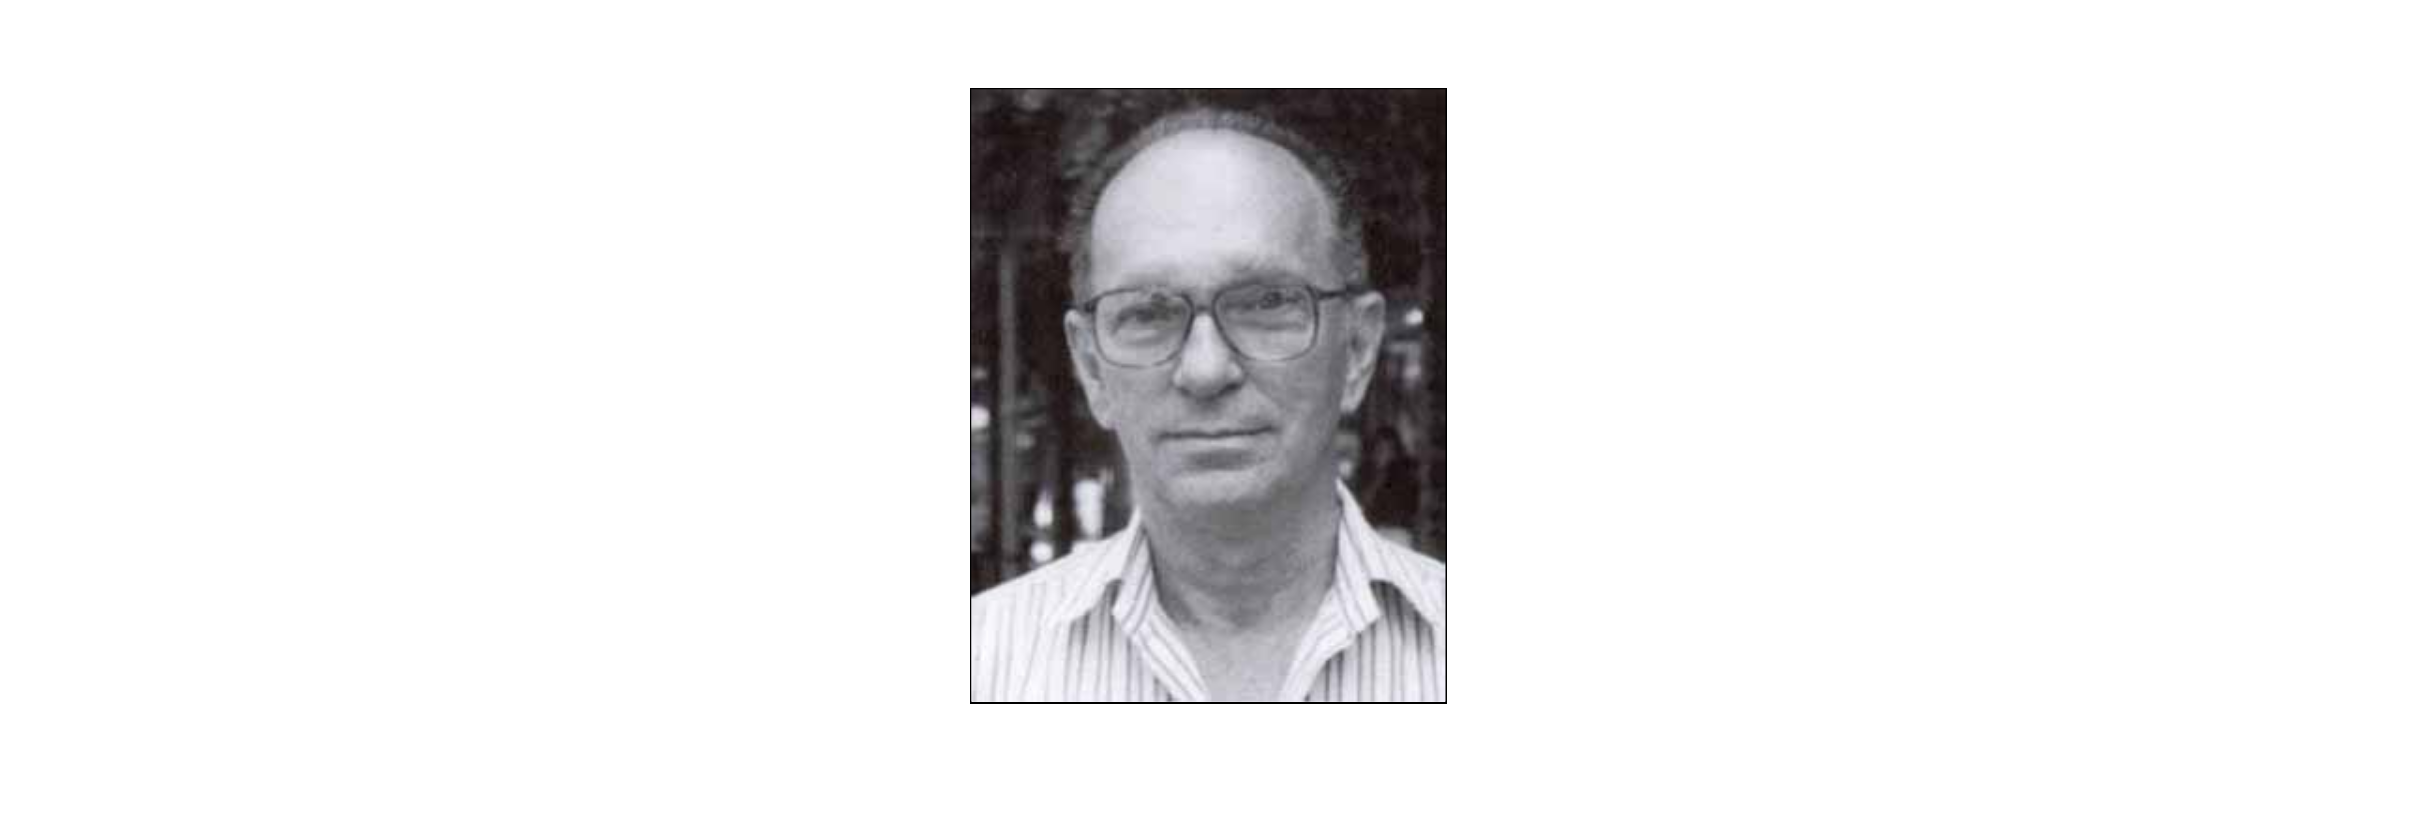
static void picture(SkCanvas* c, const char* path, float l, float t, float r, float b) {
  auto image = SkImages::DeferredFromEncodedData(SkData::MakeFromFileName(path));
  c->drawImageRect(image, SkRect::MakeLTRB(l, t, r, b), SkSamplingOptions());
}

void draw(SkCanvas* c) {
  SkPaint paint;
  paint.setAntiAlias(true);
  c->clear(0xffffffff);
  paint.setStyle(SkPaint::kStroke_Style);
  paint.setStrokeWidth(2);
  paint.setColor(0xff000000);
  c->drawRect(SkRect::MakeLTRB(971, 89, 1446, 703), paint);
  picture(c, "img_01.png", 971, 89, 1446, 702);
}
